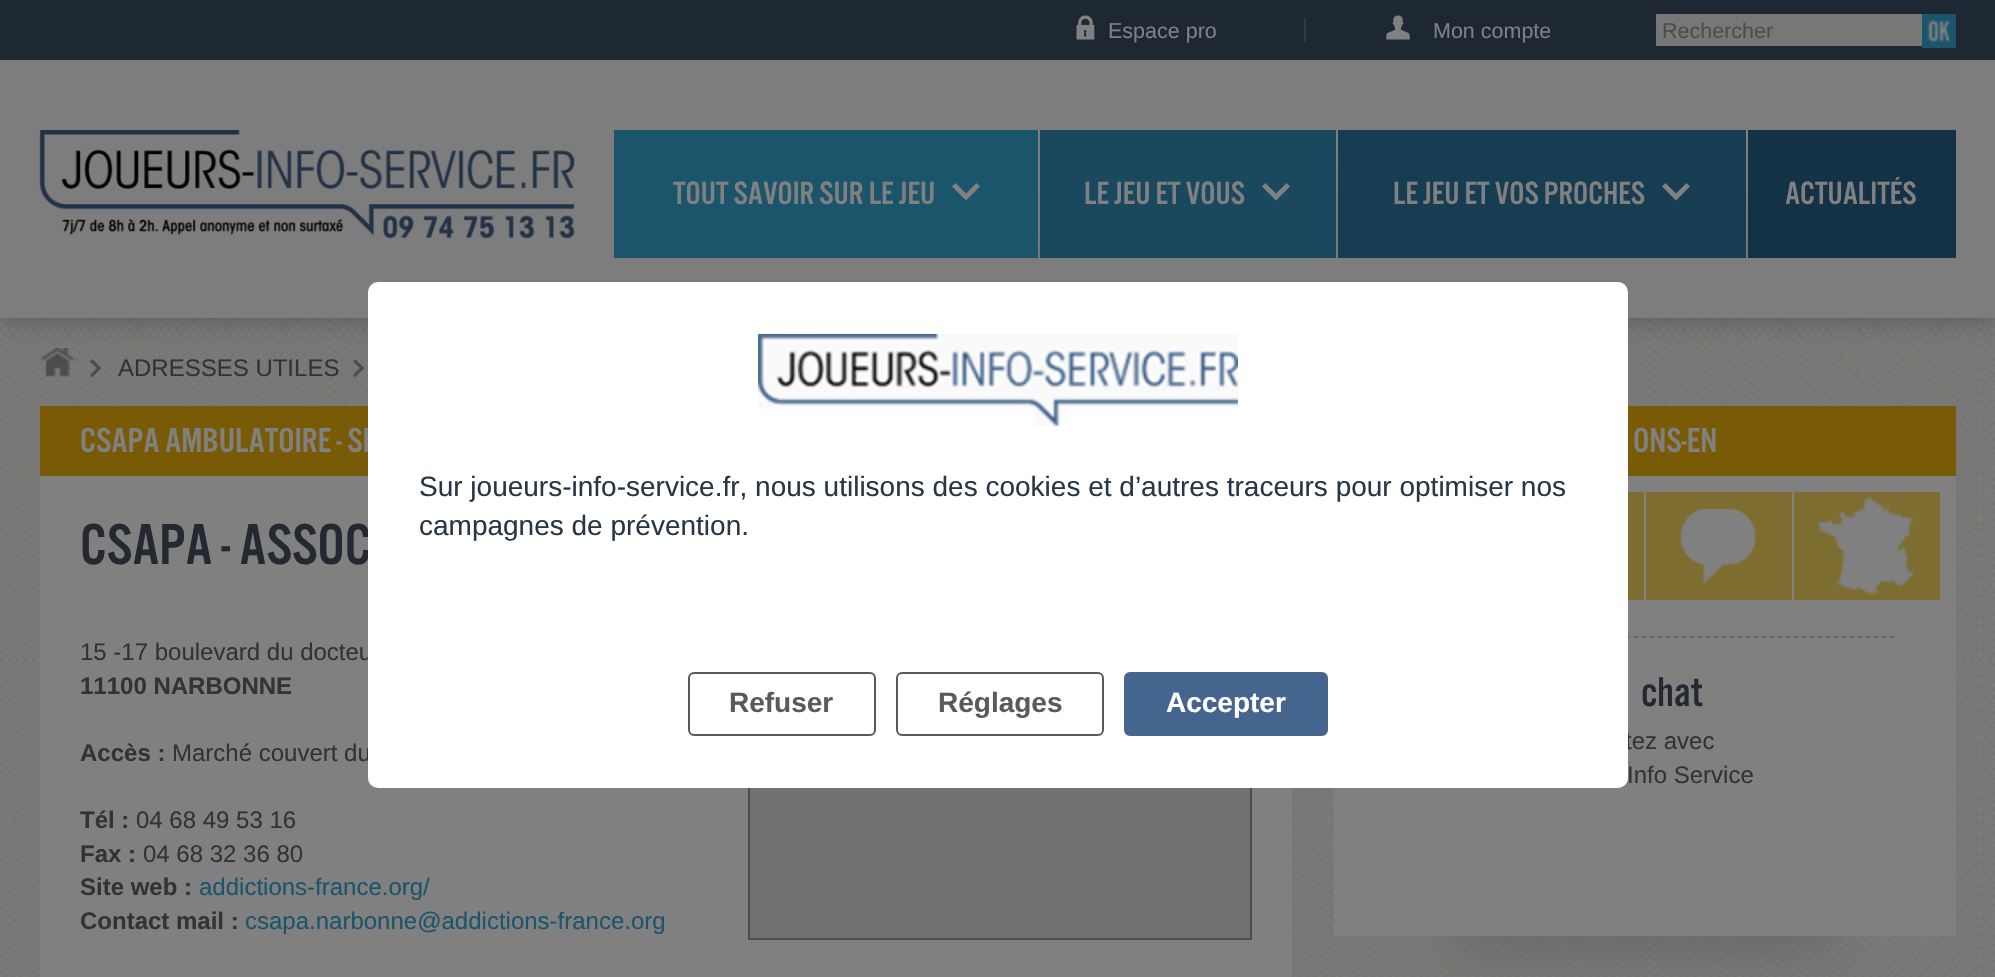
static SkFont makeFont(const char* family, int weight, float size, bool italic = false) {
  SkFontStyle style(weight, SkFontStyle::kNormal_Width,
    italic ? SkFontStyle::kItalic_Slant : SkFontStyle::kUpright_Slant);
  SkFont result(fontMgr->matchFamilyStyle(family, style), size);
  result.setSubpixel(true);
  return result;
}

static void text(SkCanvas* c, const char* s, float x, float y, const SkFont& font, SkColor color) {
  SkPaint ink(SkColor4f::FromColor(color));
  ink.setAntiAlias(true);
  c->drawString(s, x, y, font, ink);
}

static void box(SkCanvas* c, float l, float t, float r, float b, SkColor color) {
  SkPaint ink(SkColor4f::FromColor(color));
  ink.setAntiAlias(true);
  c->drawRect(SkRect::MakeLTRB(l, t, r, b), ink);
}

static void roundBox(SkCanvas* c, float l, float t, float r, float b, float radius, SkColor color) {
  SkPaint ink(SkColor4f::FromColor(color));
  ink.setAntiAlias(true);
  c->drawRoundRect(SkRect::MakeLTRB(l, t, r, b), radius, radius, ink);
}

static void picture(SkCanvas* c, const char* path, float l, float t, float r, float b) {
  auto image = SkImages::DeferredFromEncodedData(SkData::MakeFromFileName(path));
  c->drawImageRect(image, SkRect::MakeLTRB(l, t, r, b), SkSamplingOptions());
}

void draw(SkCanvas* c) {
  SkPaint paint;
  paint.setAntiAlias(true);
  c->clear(0xffffffff);
  picture(c, "img_01.png", 0, 318, 1995, 977);
  picture(c, "img_06.png", 39, 348, 76, 377);
  paint.setColor(0x33000000);
  paint.setMaskFilter(SkMaskFilter::MakeBlur(kNormal_SkBlurStyle, 10));
  c->drawRect(SkRect::MakeLTRB(0, 6, 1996, 324), paint);
  paint.setMaskFilter(nullptr);
  box(c, 0, 60, 1995, 318, 0xff7d7d7d);
  box(c, 0, 0, 1995, 60, 0xff1d2832);
  box(c, 1656, 14, 1922, 46, 0xff777777);
  SkFont face1 = makeFont("Liberation Sans", 400, 21.5f);
  text(c, "Rechercher", 1662, 38, face1, 0xff4d4d4d);
  box(c, 1922, 14, 1956, 48, 0xff1b556b);
  picture(c, "img_02.png", 1927, 19, 1951, 43);
  box(c, 614, 130, 1038, 258, 0xff1b556b);
  SkFont face2 = makeFont("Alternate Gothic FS", 400, 33.5f);
  text(c, "TOUT SAVOIR SUR LE JEU", 673, 204, face2, 0xff808080);
  paint.setColor(0xff808080);
  c->drawPath(SkPathBuilder().moveTo(980, 186.5f).lineTo(976.5f, 183).lineTo(966, 193.5f).lineTo(955.5f, 183).lineTo(952, 186.5f).lineTo(966, 200.5f).close().detach(), paint);
  box(c, 1040, 130, 1336, 258, 0xff19485f);
  {
    const SkColor colors[] = {0xff808080, 0xff777777};
    const float stops[] = {0, 1};
    const SkPoint ends[] = {{1039, 130}, {1039, 258}};
    paint.setShader(SkGradientShader::MakeLinear(ends, colors, stops, 2, SkTileMode::kClamp));
    paint.setAlpha(255);
  }
  c->drawRect(SkRect::MakeLTRB(1038, 130, 1040, 258), paint);
  text(c, "LE JEU ET VOUS", 1084, 204, face2, 0xff808080);
  paint.setShader(nullptr);
  paint.setColor(0xff808080);
  c->drawPath(SkPathBuilder().moveTo(1290, 186.5f).lineTo(1286.5f, 183).lineTo(1276, 193.5f).lineTo(1265.5f, 183).lineTo(1262, 186.5f).lineTo(1276, 200.5f).close().detach(), paint);
  box(c, 1338, 130, 1746, 258, 0xff163d52);
  {
    const SkColor colors[] = {0xff808080, 0xff777777};
    const float stops[] = {0, 1};
    const SkPoint ends[] = {{1337, 130}, {1337, 258}};
    paint.setShader(SkGradientShader::MakeLinear(ends, colors, stops, 2, SkTileMode::kClamp));
    paint.setAlpha(255);
  }
  c->drawRect(SkRect::MakeLTRB(1336, 130, 1338, 258), paint);
  text(c, "LE JEU ET VOS PROCHES", 1393, 204, face2, 0xff808080);
  paint.setShader(nullptr);
  paint.setColor(0xff808080);
  c->drawPath(SkPathBuilder().moveTo(1690, 186.5f).lineTo(1686.5f, 183).lineTo(1676, 193.5f).lineTo(1665.5f, 183).lineTo(1662, 186.5f).lineTo(1676, 200.5f).close().detach(), paint);
  box(c, 1748, 130, 1956, 258, 0xff143245);
  {
    const SkColor colors[] = {0xff808080, 0xff777777};
    const float stops[] = {0, 1};
    const SkPoint ends[] = {{1747, 130}, {1747, 258}};
    paint.setShader(SkGradientShader::MakeLinear(ends, colors, stops, 2, SkTileMode::kClamp));
    paint.setAlpha(255);
  }
  c->drawRect(SkRect::MakeLTRB(1746, 130, 1748, 258), paint);
  text(c, "ACTUALITÉS", 1785, 204, face2, 0xff808080);
  box(c, 1304, 18, 1306, 42, 0xff313941);
  picture(c, "img_03.png", 1076, 15, 1095, 40);
  text(c, "Espace pro", 1108, 38, face1, 0xff808080);
  picture(c, "img_04.png", 1386, 15, 1410, 40);
  text(c, "Mon compte", 1433, 38, face1, 0xff808080);
  picture(c, "img_05.png", 39, 130, 575, 239);
  SkFont face3 = makeFont("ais", 400, 18);
  text(c, ">", 90, 376, face3, 0xff4d4d4d);
  SkFont face4 = makeFont("Liberation Sans", 400, 24);
  text(c, "ADRESSES UTILES", 118, 376, face4, 0xff333333);
  text(c, ">", 353, 376, face3, 0xff4d4d4d);
  box(c, 40, 476, 1292, 977, 0xff808080);
  box(c, 40, 406, 368, 476, 0xff785a07);
  SkFont face5 = makeFont("Alternate Gothic FS", 400, 36);
  text(c, "CSAPA AMBULATOIRE - SE", 80, 452, face5, 0xff808080);
  SkFont face6 = makeFont("Alternate Gothic FS", 400, 60);
  text(c, "CSAPA - ASSOC", 80, 564, face6, 0xff242830);
  text(c, "15 -17 boulevard du docteu", 80, 660, face4, 0xff333333);
  SkFont face7 = makeFont("Liberation Sans", 700, 24);
  text(c, "11100 NARBONNE", 80, 694, face7, 0xff333333);
  text(c, "Accès :", 80, 761, face7, 0xff333333);
  text(c, "Marché couvert du", 172, 761, face4, 0xff333333);
  text(c, "Tél :", 80, 828, face7, 0xff333333);
  text(c, "04 68 49 53 16", 136, 828, face4, 0xff333333);
  text(c, "Fax :", 80, 862, face7, 0xff333333);
  text(c, "04 68 32 36 80", 143, 862, face4, 0xff333333);
  text(c, "Site web :", 80, 895, face7, 0xff333333);
  text(c, "addictions-france.org/", 199, 895, face4, 0xff1b556b);
  text(c, "Contact mail :", 80, 929, face7, 0xff333333);
  text(c, "csapa.narbonne@addictions-france.org", 245, 929, face4, 0xff1b556b);
  paint.setStyle(SkPaint::kStroke_Style);
  paint.setStrokeWidth(2);
  paint.setShader(nullptr);
  paint.setColor(0xff4d4d4d);
  c->drawRect(SkRect::MakeLTRB(749, 637, 1251, 939), paint);
  box(c, 750, 788, 1250, 938, 0xff737270);
  paint.setStyle(SkPaint::kFill_Style);
  paint.setColor(0x4d000000);
  paint.setMaskFilter(SkMaskFilter::MakeBlur(kNormal_SkBlurStyle, 25));
  c->drawRect(SkRect::MakeLTRB(1458, 916, 1832, 936), paint);
  paint.setMaskFilter(nullptr);
  box(c, 1334, 476, 1956, 936, 0xff808080);
  box(c, 1628, 406, 1956, 476, 0xff785a07);
  text(c, "ONS-EN", 1633, 452, face5, 0xff808080);
  box(c, 1628, 492, 1644, 600, 0xff7d6d31);
  box(c, 1646, 492, 1792, 600, 0xff7d6d31);
  picture(c, "img_07.png", 1680, 508, 1756, 584);
  box(c, 1794, 492, 1940, 600, 0xff7d6d31);
  picture(c, "img_08.png", 1817, 496, 1916, 596);
  picture(c, "img_09.png", 1628, 636, 1895, 638);
  SkFont face8 = makeFont("Alternate Gothic FS", 400, 43);
  text(c, "chat", 1641, 706, face8, 0xff242830);
  text(c, "tez avec", 1625, 749, face4, 0xff333333);
  text(c, "Info Service", 1627, 783, face4, 0xff333333);
  roundBox(c, 368, 282, 1628, 788, 10, 0xffffffff);
  picture(c, "img_10.png", 758, 334, 1238, 426);
  SkFont face9 = makeFont("Liberation Sans", 400, 28);
  text(c, "Sur joueurs-info-service.fr, nous utilisons des cookies et d’autres traceurs pour optimiser nos", 419, 496, face9, 0xff283645);
  text(c, "campagnes de prévention.", 419, 535, face9, 0xff283645);
  paint.setStyle(SkPaint::kStroke_Style);
  paint.setColor(0xff5a5a5a);
  c->drawRoundRect(SkRect::MakeLTRB(689, 673, 875, 735), 5, 5, paint);
  SkFont face10 = makeFont("Liberation Sans", 700, 28);
  text(c, "Refuser", 729, 712, face10, 0xff5a5a5a);
  c->drawRoundRect(SkRect::MakeLTRB(897, 673, 1103, 735), 5, 5, paint);
  text(c, "Réglages", 938, 712, face10, 0xff5a5a5a);
  paint.setStyle(SkPaint::kFill_Style);
  paint.setColor(0xff44658d);
  c->drawRoundRect(SkRect::MakeLTRB(1125, 673, 1327, 735), 5, 5, paint);
  paint.setStyle(SkPaint::kStroke_Style);
  c->drawRoundRect(SkRect::MakeLTRB(1125, 673, 1327, 735), 5, 5, paint);
  text(c, "Accepter", 1166, 712, face10, 0xffffffff);
}
